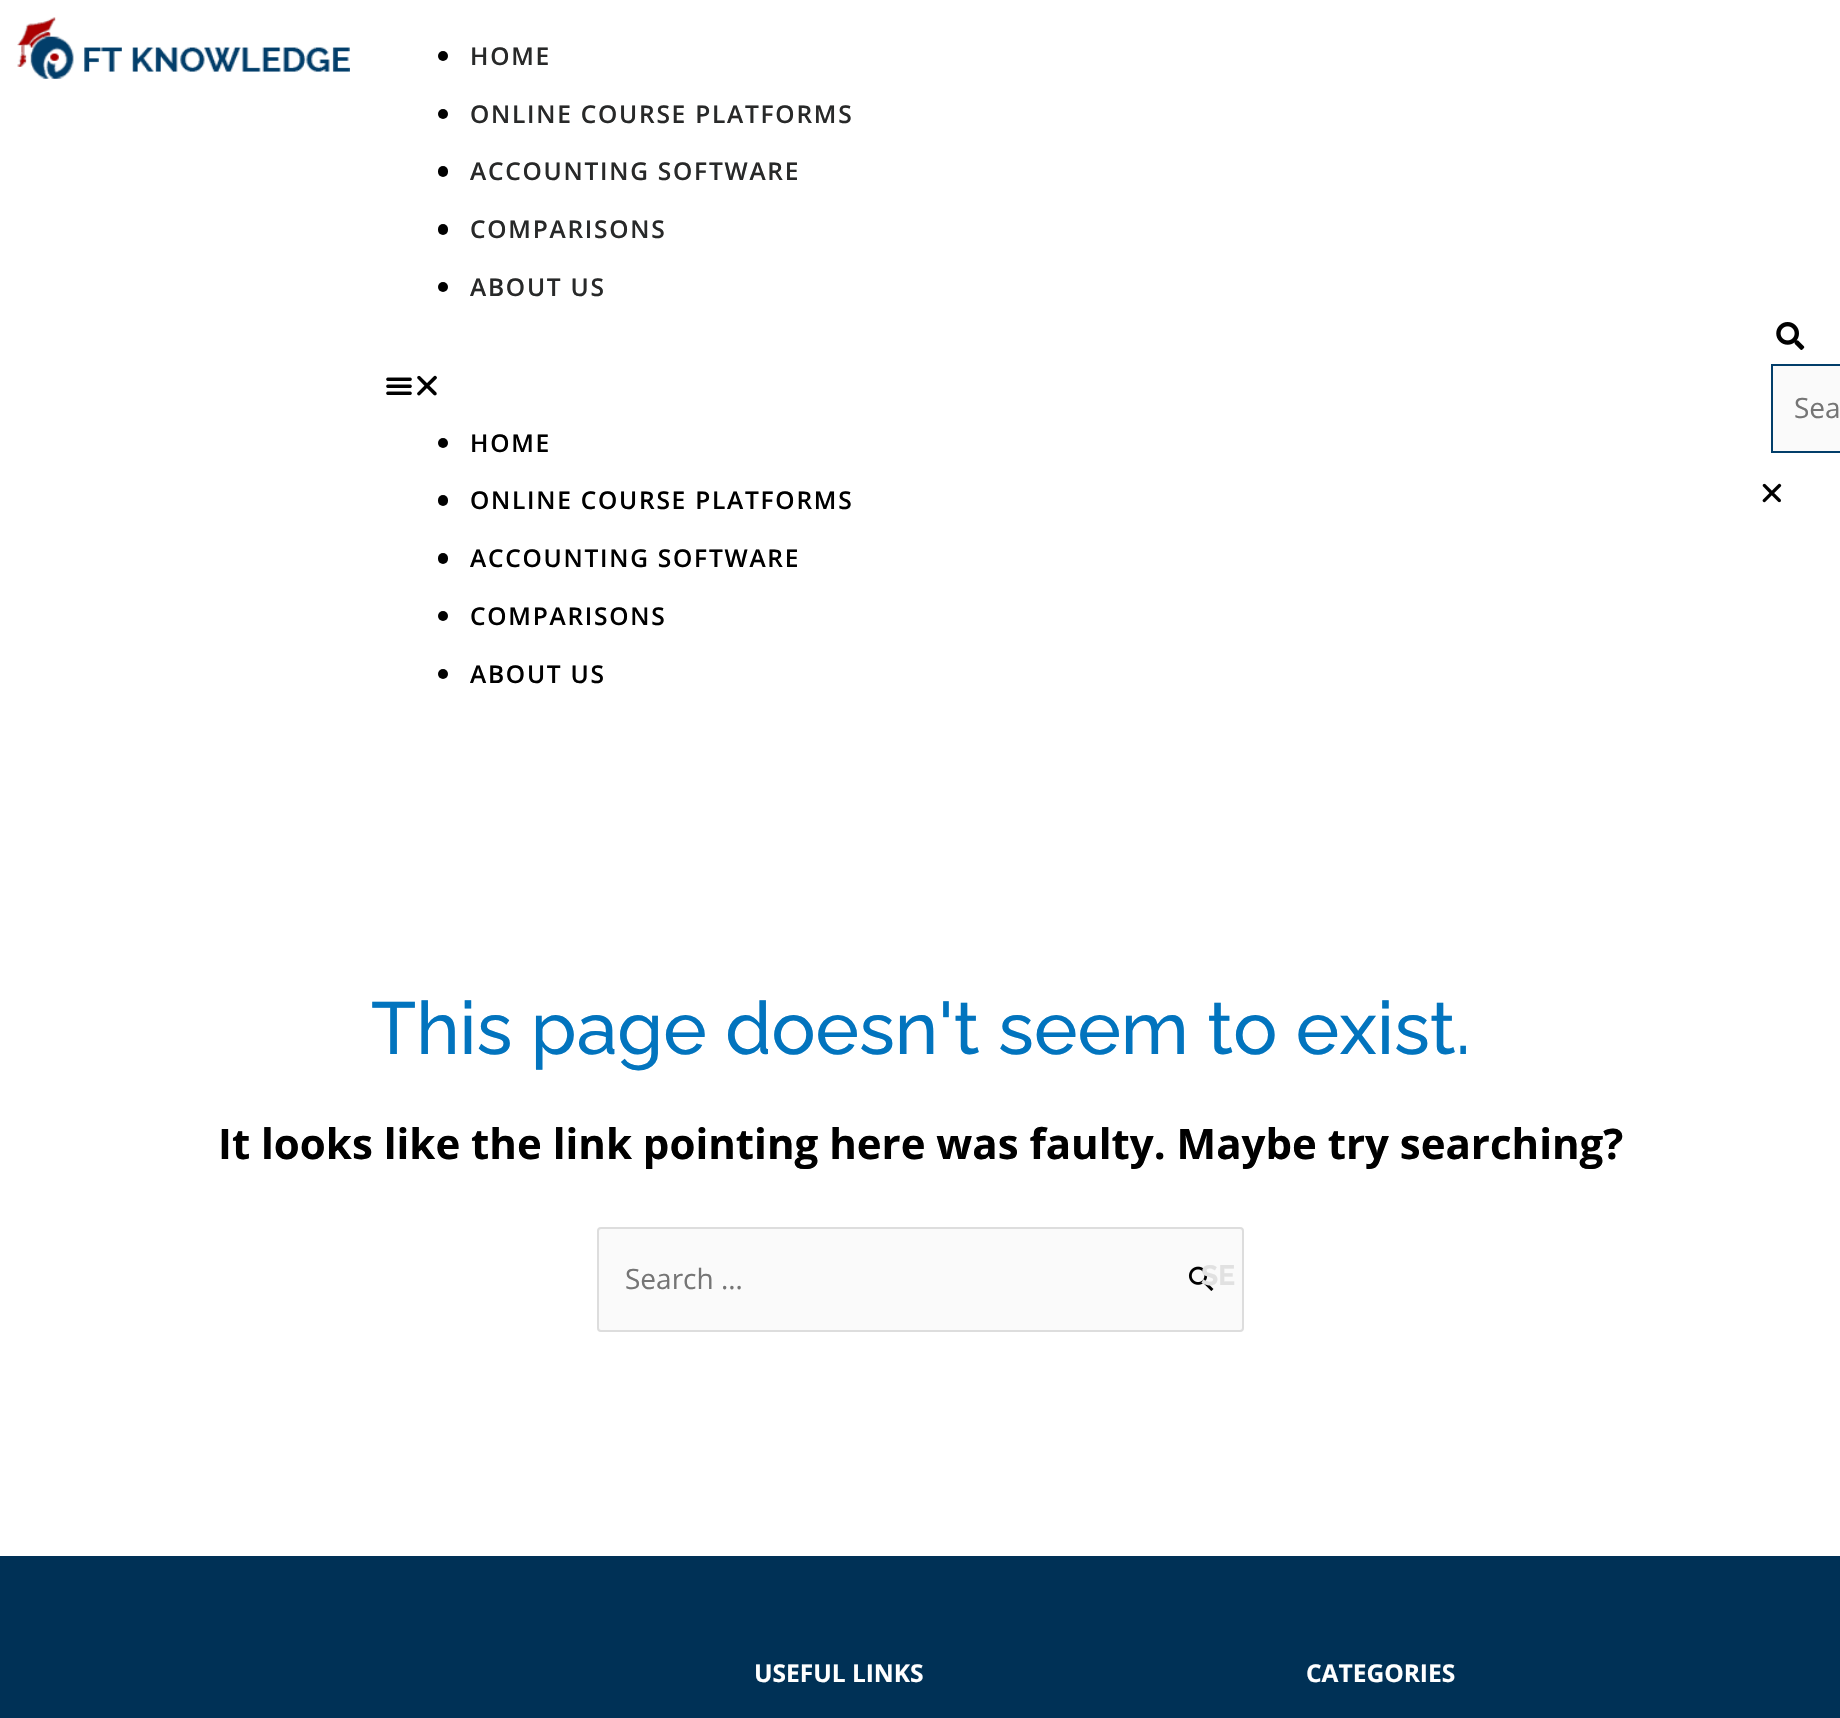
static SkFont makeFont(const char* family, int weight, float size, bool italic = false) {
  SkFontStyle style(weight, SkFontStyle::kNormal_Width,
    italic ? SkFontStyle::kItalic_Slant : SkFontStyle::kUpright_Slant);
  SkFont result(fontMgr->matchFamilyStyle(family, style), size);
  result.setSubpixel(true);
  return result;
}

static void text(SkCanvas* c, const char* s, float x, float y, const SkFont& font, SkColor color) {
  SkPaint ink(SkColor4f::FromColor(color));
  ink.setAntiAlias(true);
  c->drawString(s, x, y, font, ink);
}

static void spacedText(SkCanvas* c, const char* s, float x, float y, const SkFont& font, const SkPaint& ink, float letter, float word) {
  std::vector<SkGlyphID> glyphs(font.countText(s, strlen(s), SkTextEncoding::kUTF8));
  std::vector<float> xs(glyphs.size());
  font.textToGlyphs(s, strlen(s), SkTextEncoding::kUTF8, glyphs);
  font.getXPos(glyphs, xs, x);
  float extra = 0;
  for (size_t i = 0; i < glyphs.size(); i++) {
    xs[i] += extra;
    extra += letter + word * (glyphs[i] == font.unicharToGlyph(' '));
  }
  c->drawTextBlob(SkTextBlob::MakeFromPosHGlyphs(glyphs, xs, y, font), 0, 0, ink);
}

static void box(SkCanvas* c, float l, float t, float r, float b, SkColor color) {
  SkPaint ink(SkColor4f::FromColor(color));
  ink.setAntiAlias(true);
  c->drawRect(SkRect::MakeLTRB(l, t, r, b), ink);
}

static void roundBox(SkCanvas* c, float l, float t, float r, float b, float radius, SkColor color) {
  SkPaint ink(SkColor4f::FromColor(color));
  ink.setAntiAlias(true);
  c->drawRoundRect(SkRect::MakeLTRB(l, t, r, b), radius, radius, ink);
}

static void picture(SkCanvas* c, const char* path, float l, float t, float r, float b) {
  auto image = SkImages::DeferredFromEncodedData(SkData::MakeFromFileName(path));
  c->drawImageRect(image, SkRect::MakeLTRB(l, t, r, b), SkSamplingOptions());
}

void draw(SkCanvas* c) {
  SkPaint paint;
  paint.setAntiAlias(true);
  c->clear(0xffffffff);
  picture(c, "img_01.png", 17, 17, 350, 79);
  paint.setColor(0xff000000);
  c->drawCircle(443, 56, 5, paint);
  SkFont face1 = makeFont("Open Sans", 600, 24.5f);
  paint.setColor(0xff282929);
  spacedText(c, "HOME", 470, 65, face1, paint, 1.75f, 0);
  paint.setColor(0xff000000);
  c->drawCircle(443, 114, 5, paint);
  paint.setColor(0xff282929);
  spacedText(c, "ONLINE COURSE PLATFORMS", 470, 123, face1, paint, 1.75f, 0);
  roundBox(c, 438, 166, 448, 177, 5, 0xff000000);
  spacedText(c, "ACCOUNTING SOFTWARE", 470, 180, face1, paint, 1.75f, 0);
  roundBox(c, 438, 224, 448, 235, 5, 0xff000000);
  spacedText(c, "COMPARISONS", 470, 238, face1, paint, 1.75f, 0);
  paint.setColor(0xff000000);
  c->drawCircle(443, 287, 5, paint);
  paint.setColor(0xff282929);
  spacedText(c, "ABOUT US", 470, 296, face1, paint, 1.75f, 0);
  picture(c, "img_02.png", 386, 377, 412, 395);
  picture(c, "img_03.png", 417, 375, 437, 396);
  paint.setColor(0xff000000);
  c->drawCircle(443, 443, 5, paint);
  spacedText(c, "HOME", 470, 452, face1, paint, 1.75f, 0);
  roundBox(c, 438, 495, 448, 506, 5, 0xff000000);
  spacedText(c, "ONLINE COURSE PLATFORMS", 470, 509, face1, paint, 1.75f, 0);
  roundBox(c, 438, 553, 448, 564, 5, 0xff000000);
  spacedText(c, "ACCOUNTING SOFTWARE", 470, 567, face1, paint, 1.75f, 0);
  c->drawCircle(443, 616, 5, paint);
  spacedText(c, "COMPARISONS", 470, 625, face1, paint, 1.75f, 0);
  c->drawCircle(443, 674, 5, paint);
  spacedText(c, "ABOUT US", 470, 683, face1, paint, 1.75f, 0);
  picture(c, "img_04.png", 1776, 322, 1805, 350);
  paint.setColor(0xfffafafa);
  c->drawRect(SkRect::MakeLTRB(1772, 365, 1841, 452), paint);
  paint.setStyle(SkPaint::kStroke_Style);
  paint.setStrokeWidth(2);
  paint.setColor(0xff023e6a);
  c->drawRect(SkRect::MakeLTRB(1772, 365, 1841, 452), paint);
  SkFont face2 = makeFont("Open Sans", 400, 28);
  text(c, "Sea", 1794, 418, face2, 0xff757575);
  picture(c, "img_05.png", 1762, 483, 1782, 503);
  SkFont face3 = makeFont("Raleway", 500, 73.5f);
  text(c, "This page doesn't seem to exist.", 371, 1054, face3, 0xff0274be);
  SkFont face4 = makeFont("Open Sans", 700, 42);
  text(c, "It looks like the link pointing here was faulty. Maybe try searching?", 218, 1159, face4, 0xff000000);
  paint.setStyle(SkPaint::kFill_Style);
  paint.setColor(0xfffafafa);
  c->drawRoundRect(SkRect::MakeLTRB(598, 1228, 1243, 1331), 3, 3, paint);
  paint.setStyle(SkPaint::kStroke_Style);
  paint.setColor(0xffdddddd);
  c->drawRoundRect(SkRect::MakeLTRB(598, 1228, 1243, 1331), 3, 3, paint);
  picture(c, "img_06.png", 1188, 1266, 1214, 1291);
  SkFont face5 = makeFont("Raleway", 700, 28);
  text(c, "SE", 1201, 1285, face5, 0xffe1e1e1);
  text(c, "Search …", 625, 1289, face2, 0xff757575);
  box(c, 0, 1556, 1840, 1718, 0xff003156);
  SkFont face6 = makeFont("Open Sans", 700, 24.5f);
  text(c, "USEFUL LINKS", 754, 1682, face6, 0xffffffff);
  text(c, "CATEGORIES", 1306, 1682, face6, 0xffffffff);
}
